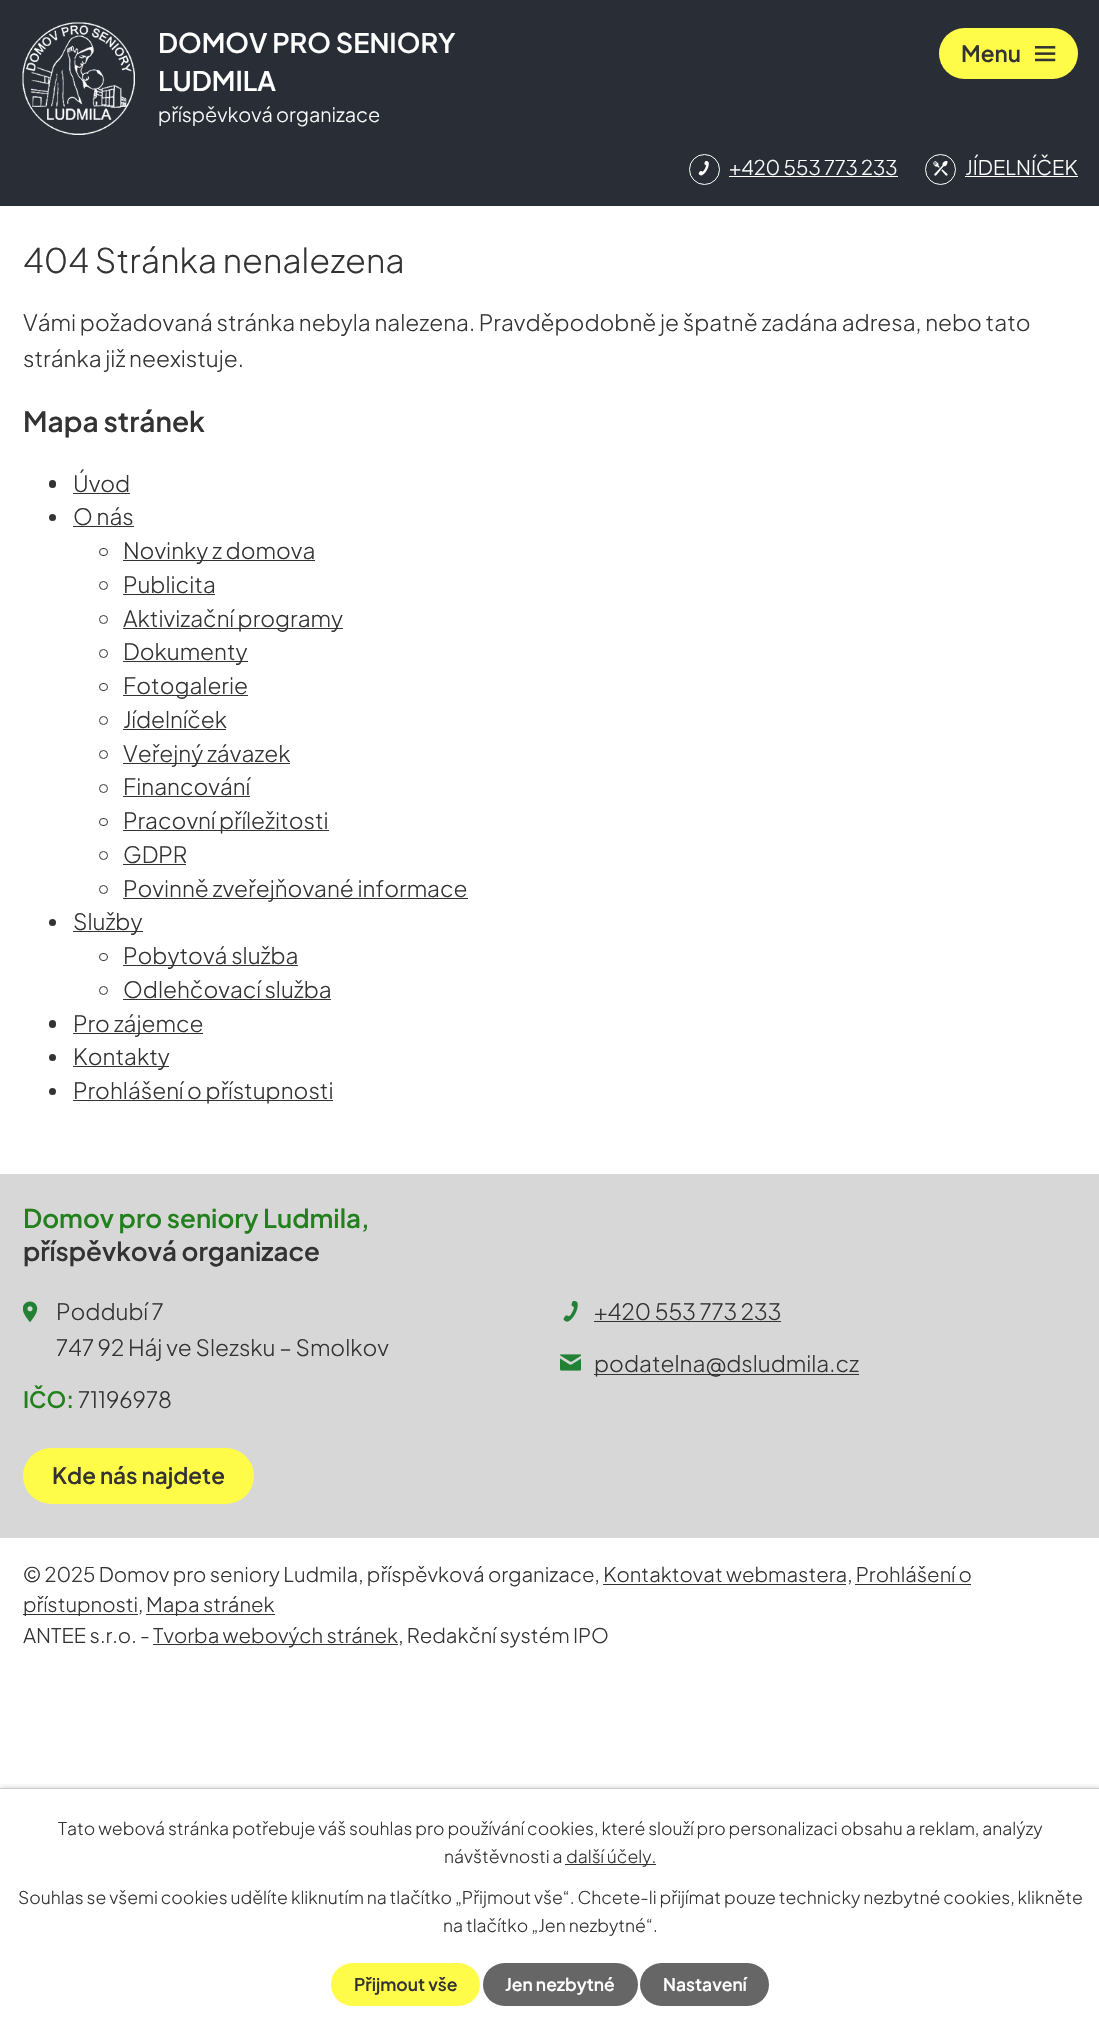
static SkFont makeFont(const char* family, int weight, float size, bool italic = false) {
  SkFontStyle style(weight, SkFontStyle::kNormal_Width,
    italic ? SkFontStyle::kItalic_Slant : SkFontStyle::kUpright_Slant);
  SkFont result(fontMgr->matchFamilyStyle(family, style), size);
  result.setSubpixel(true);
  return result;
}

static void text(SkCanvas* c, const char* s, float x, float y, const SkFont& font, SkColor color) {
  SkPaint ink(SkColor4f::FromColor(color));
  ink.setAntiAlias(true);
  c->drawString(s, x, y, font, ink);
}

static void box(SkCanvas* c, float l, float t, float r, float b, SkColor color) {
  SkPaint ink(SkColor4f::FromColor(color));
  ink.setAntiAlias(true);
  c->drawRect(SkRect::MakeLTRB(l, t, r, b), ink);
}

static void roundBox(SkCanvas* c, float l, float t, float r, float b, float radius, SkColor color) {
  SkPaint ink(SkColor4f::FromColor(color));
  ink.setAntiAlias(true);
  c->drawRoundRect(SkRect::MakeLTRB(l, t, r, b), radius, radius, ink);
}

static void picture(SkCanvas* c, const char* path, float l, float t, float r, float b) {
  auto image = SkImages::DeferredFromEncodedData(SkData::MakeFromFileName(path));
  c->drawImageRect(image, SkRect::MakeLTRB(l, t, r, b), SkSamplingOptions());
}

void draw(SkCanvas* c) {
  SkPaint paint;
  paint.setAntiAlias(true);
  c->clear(0xffffffff);
  box(c, 0, 0, 1099, 206, 0xff282d36);
  picture(c, "img_01.png", 22, 22, 135, 135);
  SkFont face1 = makeFont("Plus Jakarta Sans", 600, 27);
  text(c, "DOMOV PRO SENIORY", 158, 53, face1, 0xffffffff);
  text(c, "LUDMILA", 158, 91, face1, 0xffffffff);
  SkFont face2 = makeFont("Plus Jakarta Sans", 300, 19.75f);
  text(c, "příspěvková organizace", 158, 122, face2, 0xffffffff);
  paint.setStyle(SkPaint::kStroke_Style);
  paint.setStrokeWidth(1);
  paint.setColor(0xffffffff);
  c->drawCircle(704.5f, 169.5f, 15, paint);
  picture(c, "img_02.png", 698, 161, 709, 176);
  SkFont face3 = makeFont("Plus Jakarta Sans", 300, 20.25f);
  text(c, "+420 553 773 233", 729, 175, face3, 0xffffffff);
  box(c, 729, 176, 898, 177, 0xffffffff);
  c->drawCircle(940.5f, 169.5f, 15, paint);
  picture(c, "img_03.png", 933, 161, 948, 176);
  text(c, "JÍDELNÍČEK", 965, 175, face3, 0xffffffff);
  box(c, 965, 176, 1078, 177, 0xffffffff);
  roundBox(c, 939, 28, 1078, 79, 25.5f, 0xfffffc49);
  SkFont face4 = makeFont("Plus Jakarta Sans", 600, 22.5f);
  text(c, "Menu", 961, 62, face4, 0xff333333);
  picture(c, "img_04.png", 1035, 46, 1056, 62);
  SkFont face5 = makeFont("Plus Jakarta Sans", 300, 33.75f);
  text(c, "404 Stránka nenalezena", 23, 273, face5, 0xff333333);
  SkFont face6 = makeFont("Plus Jakarta Sans", 300, 22.5f);
  text(c, "Vámi požadovaná stránka nebyla nalezena. Pravděpodobně je špatně zadána adresa, nebo tato", 23, 331, face6, 0xff333333);
  text(c, "stránka již neexistuje.", 23, 367, face6, 0xff333333);
  SkFont face7 = makeFont("Plus Jakarta Sans", 600, 28);
  text(c, "Mapa stránek", 23, 432, face7, 0xff333333);
  roundBox(c, 49, 480, 56, 488, 3.5f, 0xff333333);
  text(c, "Úvod", 73, 492, face6, 0xff333333);
  box(c, 73, 493, 130, 494, 0xff333333);
  paint.setStyle(SkPaint::kFill_Style);
  paint.setColor(0xff333333);
  c->drawCircle(52.5f, 517.5f, 3.5f, paint);
  text(c, "O nás", 73, 525, face6, 0xff333333);
  box(c, 73, 526, 134, 527, 0xff333333);
  paint.setStyle(SkPaint::kStroke_Style);
  c->drawRoundRect(SkRect::MakeLTRB(99.5f, 548.5f, 107.5f, 555.5f), 3.5f, 3.5f, paint);
  box(c, 123, 560, 315, 561, 0xff333333);
  text(c, "Novinky z domova", 123, 559, face6, 0xff333333);
  c->drawCircle(103.5f, 585.5f, 4, paint);
  text(c, "Publicita", 123, 593, face6, 0xff333333);
  box(c, 123, 594, 215, 595, 0xff333333);
  c->drawCircle(103.5f, 619.5f, 4, paint);
  box(c, 123, 628, 343, 629, 0xff333333);
  text(c, "Aktivizační programy", 123, 627, face6, 0xff333333);
  c->drawCircle(103.5f, 653.5f, 4, paint);
  box(c, 123, 661, 248, 662, 0xff333333);
  text(c, "Dokumenty", 123, 660, face6, 0xff333333);
  c->drawRoundRect(SkRect::MakeLTRB(99.5f, 683.5f, 107.5f, 690.5f), 3.5f, 3.5f, paint);
  box(c, 123, 695, 248, 696, 0xff333333);
  text(c, "Fotogalerie", 123, 694, face6, 0xff333333);
  c->drawCircle(103.5f, 720.5f, 4, paint);
  text(c, "Jídelníček", 123, 728, face6, 0xff333333);
  box(c, 123, 729, 226, 730, 0xff333333);
  c->drawCircle(103.5f, 754.5f, 4, paint);
  box(c, 123, 763, 290, 764, 0xff333333);
  text(c, "Veřejný závazek", 123, 762, face6, 0xff333333);
  c->drawCircle(103.5f, 788.5f, 4, paint);
  text(c, "Financování", 123, 795, face6, 0xff333333);
  box(c, 123, 796, 250, 797, 0xff333333);
  c->drawRoundRect(SkRect::MakeLTRB(99.5f, 818.5f, 107.5f, 825.5f), 3.5f, 3.5f, paint);
  box(c, 123, 830, 329, 831, 0xff333333);
  text(c, "Pracovní příležitosti", 123, 829, face6, 0xff333333);
  c->drawCircle(103.5f, 855.5f, 4, paint);
  text(c, "GDPR", 123, 863, face6, 0xff333333);
  box(c, 123, 864, 186, 865, 0xff333333);
  c->drawCircle(103.5f, 889.5f, 4, paint);
  box(c, 123, 898, 468, 899, 0xff333333);
  text(c, "Povinně zveřejňované informace", 123, 897, face6, 0xff333333);
  paint.setStyle(SkPaint::kFill_Style);
  c->drawCircle(52.5f, 922.5f, 3.5f, paint);
  box(c, 73, 931, 143, 932, 0xff333333);
  text(c, "Služby", 73, 930, face6, 0xff333333);
  paint.setStyle(SkPaint::kStroke_Style);
  c->drawRoundRect(SkRect::MakeLTRB(99.5f, 953.5f, 107.5f, 960.5f), 3.5f, 3.5f, paint);
  box(c, 123, 965, 298, 966, 0xff333333);
  text(c, "Pobytová služba", 123, 964, face6, 0xff333333);
  c->drawCircle(103.5f, 990.5f, 4, paint);
  text(c, "Odlehčovací služba", 123, 998, face6, 0xff333333);
  box(c, 123, 999, 331, 1000, 0xff333333);
  roundBox(c, 49, 1020, 56, 1028, 3.5f, 0xff333333);
  box(c, 73, 1033, 203, 1034, 0xff333333);
  text(c, "Pro zájemce", 73, 1032, face6, 0xff333333);
  paint.setStyle(SkPaint::kFill_Style);
  c->drawCircle(52.5f, 1057.5f, 3.5f, paint);
  box(c, 73, 1066, 169, 1067, 0xff333333);
  text(c, "Kontakty", 73, 1065, face6, 0xff333333);
  c->drawCircle(52.5f, 1091.5f, 3.5f, paint);
  box(c, 73, 1100, 333, 1101, 0xff333333);
  text(c, "Prohlášení o přístupnosti", 73, 1099, face6, 0xff333333);
  box(c, 0, 1174, 1099, 1538, 0xffd7d7d7);
  SkFont face8 = makeFont("Plus Jakarta Sans", 600, 25.9f);
  text(c, "Domov pro seniory Ludmila,", 23, 1228, face8, 0xff22801d);
  text(c, "příspěvková organizace", 23, 1261, face8, 0xff333333);
  picture(c, "img_05.png", 23, 1301, 38, 1323);
  text(c, "Poddubí 7", 56, 1320, face6, 0xff333333);
  text(c, "747 92 Háj ve Slezsku – Smolkov", 56, 1356, face6, 0xff333333);
  text(c, "IČO:", 23, 1408, face4, 0xff22801d);
  text(c, "71196978", 78, 1408, face6, 0xff333333);
  picture(c, "img_06.png", 563, 1301, 578, 1322);
  text(c, "+420 553 773 233", 594, 1320, face6, 0xff333333);
  box(c, 594, 1321, 781, 1322, 0xff333333);
  picture(c, "img_07.png", 560, 1354, 581, 1371);
  box(c, 594, 1374, 859, 1375, 0xff333333);
  text(c, "podatelna@dsludmila.cz", 594, 1372, face6, 0xff333333);
  roundBox(c, 23, 1448, 254, 1504, 28, 0xfffffc49);
  text(c, "Kde nás najdete", 52, 1484, face4, 0xff333333);
  text(c, "© 2025 Domov pro seniory Ludmila, příspěvková organizace, Kontaktovat webmastera, Prohlášení o", 23, 1582, face3, 0xff333333);
  box(c, 603, 1584, 846, 1585, 0xff333333);
  box(c, 23, 1614, 138, 1615, 0xff333333);
  text(c, "přístupnosti,", 23, 1612, face3, 0xff333333);
  box(c, 146, 1614, 275, 1615, 0xff333333);
  text(c, "Mapa stránek", 146, 1612, face3, 0xff333333);
  box(c, 855, 1584, 971, 1585, 0xff333333);
  text(c, "ANTEE s.r.o. -", 23, 1643, face3, 0xff333333);
  box(c, 153, 1644, 398, 1645, 0xff333333);
  text(c, "Tvorba webových stránek, Redakční systém IPO", 153, 1643, face3, 0xff333333);
  c->save();
  c->clipRect(SkRect::MakeLTRB(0, 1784, 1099, 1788));
  paint.setColor(0x33000000);
  paint.setMaskFilter(SkMaskFilter::MakeBlur(kNormal_SkBlurStyle, 3));
  c->drawRect(SkRect::MakeLTRB(0, 1788, 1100, 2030), paint);
  paint.setMaskFilter(nullptr);
  c->restore();
  box(c, 0, 1788, 1099, 1789, 0xffcccccc);
  SkFont face9 = makeFont("Plus Jakarta Sans", 300, 17.5f);
  text(c, "Tato webová stránka potřebuje váš souhlas pro používání cookies, které slouží pro personalizaci obsahu a reklam, analýzy", 58, 1835, face9, 0xff333333);
  text(c, "návštěvnosti a", 444, 1863, face9, 0xff333333);
  box(c, 565, 1864, 656, 1865, 0xff333333);
  text(c, "další účely.", 566, 1863, face9, 0xff333333);
  text(c, "Souhlas se všemi cookies udělíte kliknutím na tlačítko „Přijmout vše“. Chcete-li přijímat pouze technicky nezbytné cookies, klikněte", 18, 1904, face9, 0xff333333);
  text(c, "na tlačítko „Jen nezbytné“.", 443, 1932, face9, 0xff333333);
  roundBox(c, 331, 1963, 480, 2006, 21.5f, 0xfffffc49);
  SkFont face10 = makeFont("Plus Jakarta Sans", 600, 17.5f);
  text(c, "Přijmout vše", 354, 1991, face10, 0xff333333);
  roundBox(c, 483, 1963, 638, 2006, 21.5f, 0xff666666);
  text(c, "Jen nezbytné", 505, 1991, face10, 0xffffffff);
  roundBox(c, 640, 1963, 769, 2006, 21.5f, 0xff666666);
  text(c, "Nastavení", 663, 1991, face10, 0xffffffff);
}
